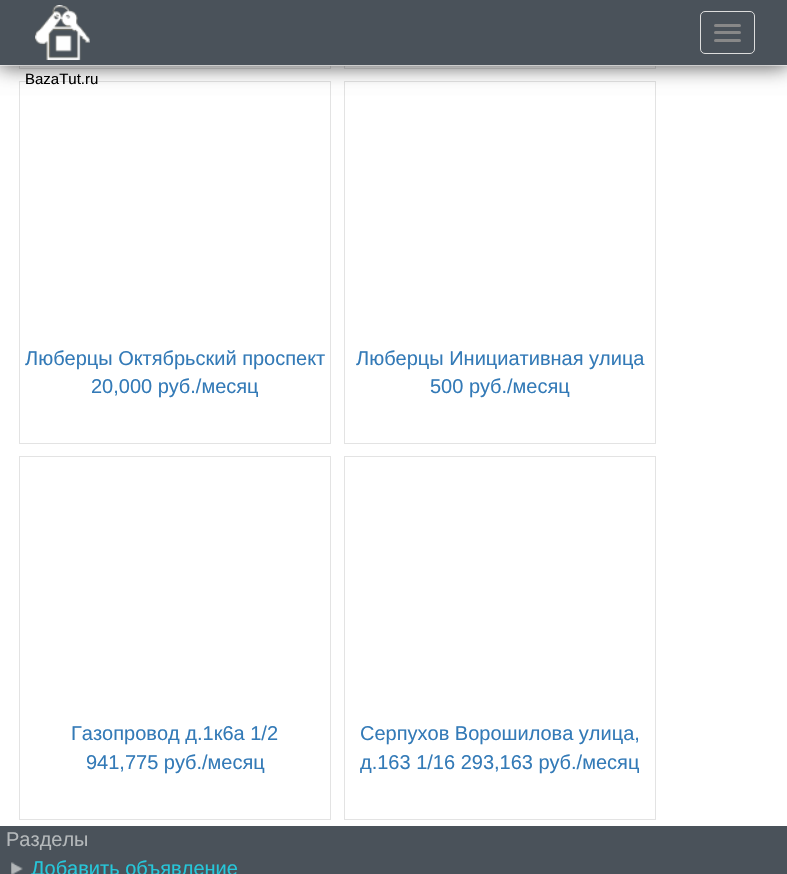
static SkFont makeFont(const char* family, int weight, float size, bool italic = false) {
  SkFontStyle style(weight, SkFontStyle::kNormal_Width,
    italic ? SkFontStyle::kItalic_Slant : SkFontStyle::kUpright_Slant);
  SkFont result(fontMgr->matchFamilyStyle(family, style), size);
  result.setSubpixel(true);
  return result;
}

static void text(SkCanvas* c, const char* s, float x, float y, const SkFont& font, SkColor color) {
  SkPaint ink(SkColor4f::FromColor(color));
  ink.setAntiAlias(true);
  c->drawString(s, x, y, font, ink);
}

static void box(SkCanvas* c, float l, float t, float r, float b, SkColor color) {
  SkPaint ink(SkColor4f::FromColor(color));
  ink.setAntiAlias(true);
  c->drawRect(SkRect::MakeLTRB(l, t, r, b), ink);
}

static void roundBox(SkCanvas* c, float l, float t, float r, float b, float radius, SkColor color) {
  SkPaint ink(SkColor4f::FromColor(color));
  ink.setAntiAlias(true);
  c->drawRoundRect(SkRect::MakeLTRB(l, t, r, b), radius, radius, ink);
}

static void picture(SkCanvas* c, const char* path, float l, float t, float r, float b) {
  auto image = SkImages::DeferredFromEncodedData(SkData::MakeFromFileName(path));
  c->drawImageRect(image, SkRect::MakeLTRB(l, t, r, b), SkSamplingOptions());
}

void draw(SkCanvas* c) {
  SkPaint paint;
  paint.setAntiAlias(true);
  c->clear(0xffffffff);
  paint.setStyle(SkPaint::kStroke_Style);
  paint.setStrokeWidth(1);
  paint.setColor(0xffe3e3e3);
  c->drawRect(SkRect::MakeLTRB(19.5f, -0.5f, 330.5f, 68.5f), paint);
  c->drawRect(SkRect::MakeLTRB(344.5f, -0.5f, 655.5f, 68.5f), paint);
  c->drawRect(SkRect::MakeLTRB(19.5f, 81.5f, 330.5f, 443.5f), paint);
  c->drawRect(SkRect::MakeLTRB(344.5f, 81.5f, 655.5f, 443.5f), paint);
  paint.setStyle(SkPaint::kFill_Style);
  paint.setColor(0x66000000);
  paint.setMaskFilter(SkMaskFilter::MakeBlur(kNormal_SkBlurStyle, 10));
  c->drawRect(SkRect::MakeLTRB(0, 0, 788, 66), paint);
  paint.setMaskFilter(nullptr);
  box(c, 0, 65, 787, 66, 0xffffffff);
  paint.setMaskFilter(SkMaskFilter::MakeBlur(kNormal_SkBlurStyle, 10));
  c->drawRect(SkRect::MakeLTRB(0, 0, 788, 65), paint);
  paint.setMaskFilter(nullptr);
  box(c, 0, 0, 787, 65, 0xff4a525a);
  paint.setStyle(SkPaint::kStroke_Style);
  paint.setColor(0xffdddddd);
  c->drawRoundRect(SkRect::MakeLTRB(700.5f, 11.5f, 754.5f, 53.5f), 4.5f, 4.5f, paint);
  roundBox(c, 714, 24, 741, 27, 1.5f, 0xff888888);
  roundBox(c, 714, 31, 741, 34, 1.5f, 0xff888888);
  roundBox(c, 714, 39, 741, 42, 1.5f, 0xff888888);
  picture(c, "img_01.png", 35, 5, 90, 60);
  SkFont face1 = makeFont("Liberation Sans", 400, 15);
  text(c, "BazaTut.ru", 25, 84, face1, 0xff000000);
  SkFont face2 = makeFont("Liberation Sans", 400, 20);
  text(c, "Люберцы Октябрьский проспект", 25, 365, face2, 0xff337ab7);
  text(c, "20,000 руб./месяц", 91, 393, face2, 0xff337ab7);
  text(c, "Люберцы Инициативная улица", 356, 365, face2, 0xff337ab7);
  text(c, "500 руб./месяц", 430, 393, face2, 0xff337ab7);
  paint.setColor(0xffe3e3e3);
  c->drawRect(SkRect::MakeLTRB(19.5f, 456.5f, 330.5f, 819.5f), paint);
  text(c, "Газопровод д.1к6а 1/2", 71, 740, face2, 0xff337ab7);
  text(c, "941,775 руб./месяц", 86, 769, face2, 0xff337ab7);
  c->drawRect(SkRect::MakeLTRB(344.5f, 456.5f, 655.5f, 819.5f), paint);
  text(c, "Серпухов Ворошилова улица,", 360, 740, face2, 0xff337ab7);
  text(c, "д.163 1/16 293,163 руб./месяц", 360, 769, face2, 0xff337ab7);
  box(c, 0, 826, 787, 874, 0xff4a525a);
  text(c, "Разделы", 6, 846, face2, 0xffb4b8ba);
  picture(c, "img_02.png", 11, 862, 23, 874);
  text(c, "Добавить объявление", 31, 875, face2, 0xff26c7da);
}
